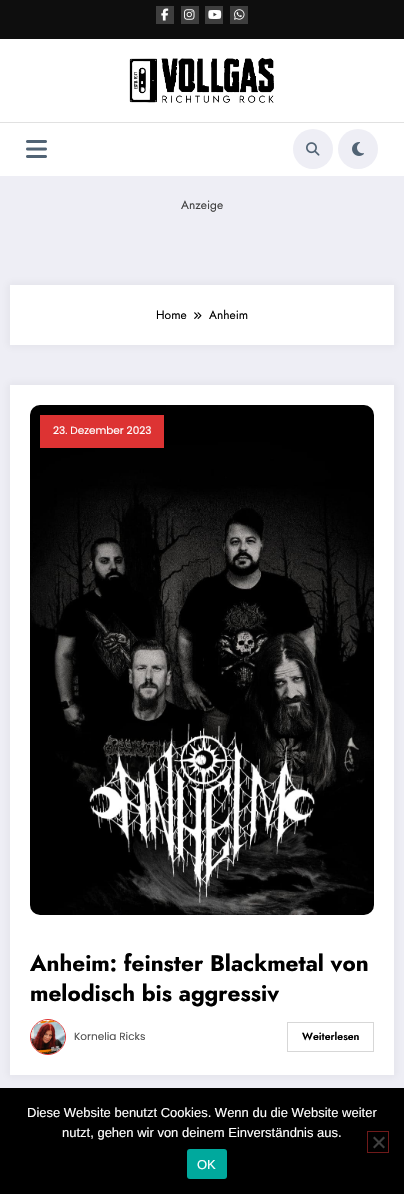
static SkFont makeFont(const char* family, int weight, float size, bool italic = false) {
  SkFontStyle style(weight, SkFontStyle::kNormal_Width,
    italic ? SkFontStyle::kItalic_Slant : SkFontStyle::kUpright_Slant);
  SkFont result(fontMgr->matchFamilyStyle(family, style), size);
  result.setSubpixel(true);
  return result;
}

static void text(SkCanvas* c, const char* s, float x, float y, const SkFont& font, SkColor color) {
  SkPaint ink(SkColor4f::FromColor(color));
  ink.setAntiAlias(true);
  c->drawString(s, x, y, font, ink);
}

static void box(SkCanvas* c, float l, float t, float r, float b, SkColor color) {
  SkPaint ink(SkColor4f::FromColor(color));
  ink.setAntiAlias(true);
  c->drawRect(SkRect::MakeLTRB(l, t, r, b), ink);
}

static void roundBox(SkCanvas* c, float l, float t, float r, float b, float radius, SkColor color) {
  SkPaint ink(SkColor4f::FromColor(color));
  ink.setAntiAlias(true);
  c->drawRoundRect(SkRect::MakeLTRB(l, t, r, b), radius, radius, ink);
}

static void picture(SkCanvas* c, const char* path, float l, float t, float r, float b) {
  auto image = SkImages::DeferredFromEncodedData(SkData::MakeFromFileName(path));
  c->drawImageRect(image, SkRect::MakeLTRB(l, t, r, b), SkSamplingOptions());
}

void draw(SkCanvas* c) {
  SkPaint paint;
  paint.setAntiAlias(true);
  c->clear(0xffeeeef5);
  box(c, 0, 0, 404, 39, 0xff0e0e0e);
  box(c, 156, 6, 174, 24, 0xff3e3e3e);
  picture(c, "img_01.png", 161, 8, 169, 21);
  box(c, 181, 6, 199, 24, 0xff3e3e3e);
  picture(c, "img_02.png", 184, 9, 195, 20);
  box(c, 205, 6, 223, 24, 0xff3e3e3e);
  picture(c, "img_03.png", 208, 10, 222, 19);
  box(c, 230, 6, 248, 24, 0xff3e3e3e);
  picture(c, "img_04.png", 234, 9, 245, 20);
  box(c, 0, 39, 404, 176, 0xffffffff);
  picture(c, "img_05.png", 129, 57, 274, 103);
  box(c, 0, 122, 404, 123, 0xffe1e1e1);
  picture(c, "img_06.png", 26, 140, 47, 158);
  paint.setColor(0xffeeeef5);
  c->drawCircle(313, 149, 20, paint);
  picture(c, "img_07.png", 306, 142, 320, 156);
  c->drawCircle(358, 149, 20, paint);
  picture(c, "img_08.png", 352, 142, 364, 156);
  SkFont face1 = makeFont("Jost", 400, 12);
  text(c, "Anzeige", 181, 209, face1, 0xff404040);
  paint.setColor(0x0d171723);
  paint.setMaskFilter(SkMaskFilter::MakeBlur(kNormal_SkBlurStyle, 4));
  c->drawRect(SkRect::MakeLTRB(8, 283, 396, 347), paint);
  paint.setMaskFilter(nullptr);
  box(c, 10, 285, 394, 345, 0xffffffff);
  text(c, "Home", 156, 319, face1, 0xff000000);
  picture(c, "img_09.png", 194, 312, 202, 319);
  text(c, "Anheim", 209, 319, face1, 0xff000000);
  paint.setMaskFilter(SkMaskFilter::MakeBlur(kNormal_SkBlurStyle, 4));
  c->drawRect(SkRect::MakeLTRB(8, 383, 396, 1077), paint);
  paint.setMaskFilter(nullptr);
  box(c, 10, 385, 394, 1075, 0xffffffff);
  picture(c, "img_10.png", 30, 405, 374, 915);
  box(c, 40, 415, 164, 448, 0xffdd3333);
  SkFont face2 = makeFont("Poppins", 400, 10.5f);
  text(c, "23. Dezember 2023", 53, 434, face2, 0xffffffff);
  SkFont face3 = makeFont("Jost", 700, 22.5f);
  text(c, "Anheim: feinster Blackmetal von", 30, 971, face3, 0xff000000);
  text(c, "melodisch bis aggressiv", 30, 1001, face3, 0xff000000);
  paint.setStyle(SkPaint::kStroke_Style);
  paint.setStrokeWidth(1);
  paint.setColor(0xffdd3333);
  c->drawCircle(48, 1037, 17.5f, paint);
  picture(c, "img_11.png", 31, 1020, 65, 1054);
  text(c, "Kornelia Ricks", 74, 1040, face2, 0xff525252);
  paint.setColor(0xffd7d7d7);
  c->drawRect(SkRect::MakeLTRB(287.5f, 1022.5f, 373.5f, 1051.5f), paint);
  SkFont face4 = makeFont("Jost", 600, 10.5f);
  text(c, "Weiterlesen", 302, 1040, face4, 0xff000000);
  box(c, 0, 1088, 404, 1194, 0xff000000);
  SkFont face5 = makeFont("Liberation Sans", 400, 13);
  text(c, "Diese Website benutzt Cookies. Wenn du die Website weiter", 27, 1117, face5, 0xffffffff);
  text(c, "nutzt, gehen wir von deinem Einverständnis aus.", 62, 1137, face5, 0xffffffff);
  paint.setColor(0xff6f1a1a);
  c->drawRect(SkRect::MakeLTRB(367.5f, 1131.5f, 388.5f, 1152.5f), paint);
  paint.setStyle(SkPaint::kFill_Style);
  paint.setColor(0xff404040);
  c->drawPath(SkPathBuilder().moveTo(383.5f, 1136.5f).lineTo(385, 1138).lineTo(374.5f, 1148.5f).lineTo(373, 1147).close().detach(), paint);
  c->drawPath(SkPathBuilder().moveTo(373, 1138).lineTo(374.5f, 1136.5f).lineTo(385, 1147).lineTo(383.5f, 1148.5f).close().detach(), paint);
  roundBox(c, 187, 1149, 227, 1179, 3, 0xff00a99d);
  text(c, "OK", 197, 1169, face5, 0xffffffff);
}
